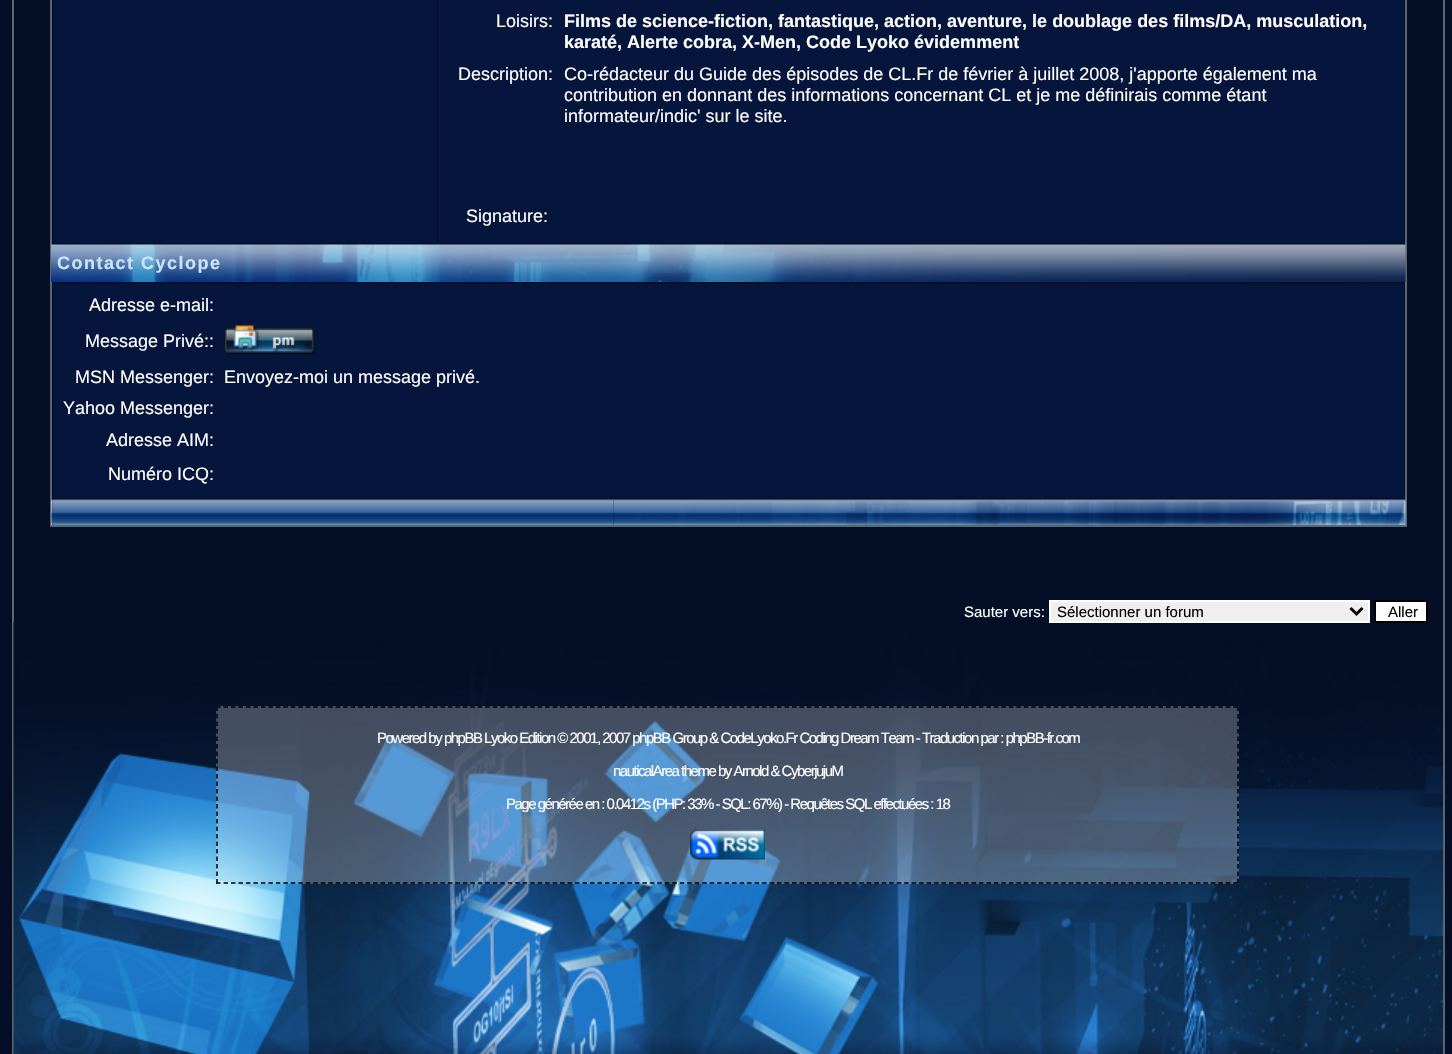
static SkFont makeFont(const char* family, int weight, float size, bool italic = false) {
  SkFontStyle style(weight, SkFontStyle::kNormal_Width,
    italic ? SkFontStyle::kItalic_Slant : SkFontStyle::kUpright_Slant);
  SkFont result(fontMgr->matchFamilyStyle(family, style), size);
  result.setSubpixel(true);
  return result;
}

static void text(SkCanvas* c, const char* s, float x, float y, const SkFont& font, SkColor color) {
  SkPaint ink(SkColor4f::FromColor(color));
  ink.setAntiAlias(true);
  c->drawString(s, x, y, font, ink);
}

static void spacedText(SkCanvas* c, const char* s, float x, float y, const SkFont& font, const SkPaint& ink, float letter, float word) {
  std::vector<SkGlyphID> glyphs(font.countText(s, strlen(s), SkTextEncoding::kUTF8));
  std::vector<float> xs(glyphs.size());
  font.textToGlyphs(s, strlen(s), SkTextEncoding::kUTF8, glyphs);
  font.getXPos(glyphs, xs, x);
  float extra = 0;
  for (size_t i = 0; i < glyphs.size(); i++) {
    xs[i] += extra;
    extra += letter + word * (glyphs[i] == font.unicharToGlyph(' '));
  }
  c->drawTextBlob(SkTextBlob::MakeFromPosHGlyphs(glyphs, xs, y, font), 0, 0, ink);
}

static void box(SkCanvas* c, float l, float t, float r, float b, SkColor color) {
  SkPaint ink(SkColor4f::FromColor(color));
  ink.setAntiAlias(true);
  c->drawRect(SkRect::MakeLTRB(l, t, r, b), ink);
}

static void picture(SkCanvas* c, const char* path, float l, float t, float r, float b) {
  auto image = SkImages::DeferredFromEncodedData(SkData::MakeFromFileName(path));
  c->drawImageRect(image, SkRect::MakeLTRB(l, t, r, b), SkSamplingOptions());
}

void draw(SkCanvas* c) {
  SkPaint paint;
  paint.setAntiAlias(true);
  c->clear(0xff040e27);
  paint.setStyle(SkPaint::kStroke_Style);
  paint.setStrokeWidth(2);
  paint.setColor(0xff59686f);
  c->drawRect(SkRect::MakeLTRB(13, -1, 1444, 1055), paint);
  c->drawRect(SkRect::MakeLTRB(51, -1, 1406, 526), paint);
  box(c, 53, 0, 437, 243, 0xff06153b);
  box(c, 438, 0, 1404, 243, 0xff06153b);
  SkFont face1 = makeFont("Liberation Sans", 400, 18);
  text(c, "Loisirs:", 496, 27, face1, 0xffffffff);
  SkFont face2 = makeFont("Liberation Sans", 700, 18);
  text(c, "Films de science-fiction, fantastique, action, aventure, le doublage des films/DA, musculation,", 564, 27, face2, 0xffffffff);
  text(c, "karaté, Alerte cobra, X-Men, Code Lyoko évidemment", 564, 48, face2, 0xffffffff);
  text(c, "Description:", 458, 80, face1, 0xffffffff);
  text(c, "Co-rédacteur du Guide des épisodes de CL.Fr de février à juillet 2008, j'apporte également ma", 564, 80, face1, 0xffffffff);
  text(c, "contribution en donnant des informations concernant CL et je me définirais comme étant", 564, 101, face1, 0xffffffff);
  text(c, "informateur/indic' sur le site.", 564, 122, face1, 0xffffffff);
  text(c, "Signature:", 466, 222, face1, 0xffffffff);
  picture(c, "img_01.png", 51, 244, 1401, 282);
  paint.setStyle(SkPaint::kFill_Style);
  paint.setColor(0xffcae6fe);
  spacedText(c, "Contact Cyclope", 57, 269, face2, paint, 1.5f, 0);
  picture(c, "img_02.png", 1401, 244, 1406, 282);
  box(c, 53, 284, 1404, 498, 0xff06153b);
  text(c, "Adresse e-mail:", 89, 311, face1, 0xffffffff);
  text(c, "Message Privé::", 85, 347, face1, 0xffffffff);
  picture(c, "img_03.png", 225, 325, 315, 355);
  text(c, "MSN Messenger:", 75, 383, face1, 0xffffffff);
  text(c, "Envoyez-moi un message privé.", 224, 383, face1, 0xffffffff);
  text(c, "Yahoo Messenger:", 63, 414, face1, 0xffffffff);
  text(c, "Adresse AIM:", 106, 446, face1, 0xffffffff);
  text(c, "Numéro ICQ:", 108, 480, face1, 0xffffffff);
  picture(c, "img_04.png", 51, 499, 53, 525);
  picture(c, "img_05.png", 52, 499, 614, 525);
  picture(c, "img_06.png", 613, 499, 1406, 525);
  SkFont face3 = makeFont("Liberation Sans", 400, 15);
  text(c, "Sauter vers:", 964, 617, face3, 0xffffffff);
  picture(c, "img_07.png", 13, 622, 1443, 1054);
  paint.setColor(0xffefefef);
  c->drawRect(SkRect::MakeLTRB(1050, 601, 1369, 622), paint);
  paint.setStyle(SkPaint::kStroke_Style);
  paint.setColor(0xffffffff);
  c->drawRect(SkRect::MakeLTRB(1050, 601, 1369, 622), paint);
  paint.setStrokeWidth(3);
  paint.setColor(0xff000000);
  c->drawPath(SkPathBuilder().moveTo(1350.5f, 608).lineTo(1356.5f, 614).lineTo(1362.5f, 608).detach(), paint);
  text(c, "Sélectionner un forum", 1057, 617, face3, 0xff000000);
  paint.setStyle(SkPaint::kFill_Style);
  paint.setColor(0xffffffff);
  c->drawRect(SkRect::MakeLTRB(1375, 601, 1427, 622), paint);
  paint.setStyle(SkPaint::kStroke_Style);
  paint.setStrokeWidth(2);
  paint.setColor(0xff000000);
  c->drawRect(SkRect::MakeLTRB(1375, 601, 1427, 622), paint);
  text(c, "Aller", 1388, 617, face3, 0xff000000);
  box(c, 216, 706, 1239, 884, 0x40ffffff);
  paint.setStrokeWidth(1.5f);
  paint.setPathEffect(SkDashPathEffect::Make({{4.5f, 2.98f}}, 0));
  c->drawPath(SkPathBuilder().moveTo(216, 707).lineTo(1239, 707).detach(), paint);
  paint.setPathEffect(nullptr);
  paint.setPathEffect(SkDashPathEffect::Make({{4.5f, 3}}, 0));
  c->drawPath(SkPathBuilder().moveTo(1238, 706.5f).lineTo(1238, 883.5f).detach(), paint);
  paint.setPathEffect(nullptr);
  paint.setPathEffect(SkDashPathEffect::Make({{4.5f, 2.98f}}, 0));
  c->drawPath(SkPathBuilder().moveTo(216, 883).lineTo(1239, 883).detach(), paint);
  paint.setPathEffect(nullptr);
  paint.setPathEffect(SkDashPathEffect::Make({{4.5f, 3}}, 0));
  c->drawPath(SkPathBuilder().moveTo(217, 706.5f).lineTo(217, 883.5f).detach(), paint);
  paint.setPathEffect(nullptr);
  paint.setStyle(SkPaint::kFill_Style);
  paint.setColor(0xffffffff);
  spacedText(c, "Powered by phpBB Lyoko Edition © 2001, 2007 phpBB Group & CodeLyoko.Fr Coding Dream Team - Traduction par : phpBB-fr.com", 377, 743, face3, paint, -1.5f, 0);
  spacedText(c, "nauticalArea theme by Arnold & CyberjujuM", 613, 776, face3, paint, -1.5f, 0);
  spacedText(c, "Page générée en : 0.0412s (PHP: 33% - SQL: 67%) - Requêtes SQL effectuées : 18", 506, 809, face3, paint, -1.5f, 0);
  picture(c, "img_08.png", 690, 829, 765, 860);
}
